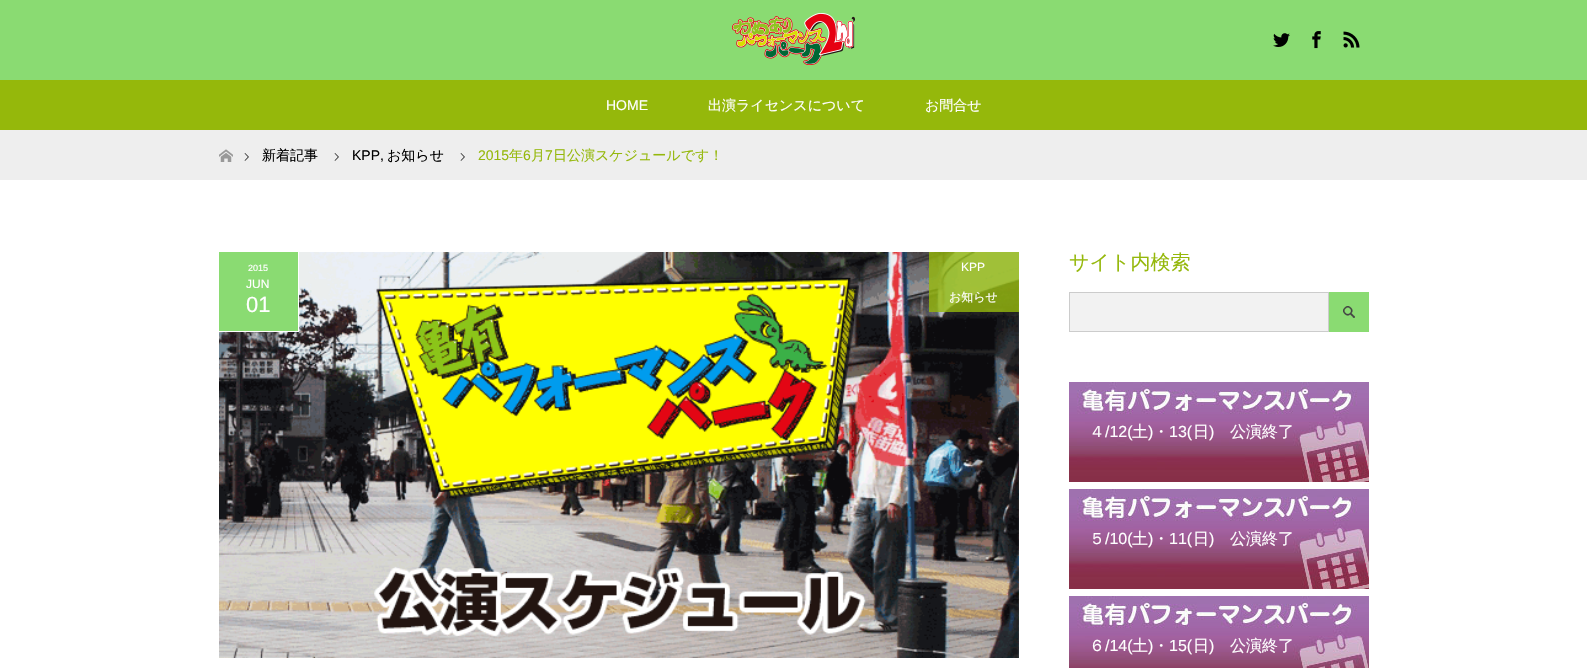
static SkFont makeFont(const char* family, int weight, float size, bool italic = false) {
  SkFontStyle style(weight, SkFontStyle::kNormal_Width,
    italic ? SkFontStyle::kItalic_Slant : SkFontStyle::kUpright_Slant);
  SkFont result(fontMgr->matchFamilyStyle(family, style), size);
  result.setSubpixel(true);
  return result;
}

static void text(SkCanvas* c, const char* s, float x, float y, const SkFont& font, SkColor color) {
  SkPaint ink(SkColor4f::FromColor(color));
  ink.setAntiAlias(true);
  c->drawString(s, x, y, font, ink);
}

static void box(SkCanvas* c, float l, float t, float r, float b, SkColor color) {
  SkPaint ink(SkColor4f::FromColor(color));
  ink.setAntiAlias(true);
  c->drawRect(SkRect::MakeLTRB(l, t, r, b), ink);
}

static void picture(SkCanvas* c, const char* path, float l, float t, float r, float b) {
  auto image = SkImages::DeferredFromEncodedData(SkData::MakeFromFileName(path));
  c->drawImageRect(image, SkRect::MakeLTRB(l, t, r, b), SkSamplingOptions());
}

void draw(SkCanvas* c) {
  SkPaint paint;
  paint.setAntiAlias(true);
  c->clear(0xffffffff);
  box(c, 0, 0, 1587, 80, 0xff8adb72);
  picture(c, "img_01.png", 732, 13, 855, 65);
  picture(c, "img_02.png", 1273, 33, 1290, 47);
  picture(c, "img_03.png", 1312, 31, 1321, 49);
  picture(c, "img_04.png", 1343, 31, 1360, 48);
  box(c, 0, 80, 1587, 130, 0xff95b80b);
  SkFont face1 = makeFont("Liberation Sans", 400, 14);
  text(c, "HOME", 606, 110, face1, 0xffffffff);
  SkFont face2 = makeFont("WenQuanYi Zen Hei", 500, 14);
  text(c, "出演ライセンスについて", 708, 110, face2, 0xffffffff);
  text(c, "お問合せ", 925, 110, face2, 0xffffffff);
  box(c, 0, 130, 1587, 180, 0xffeeeeee);
  picture(c, "img_05.png", 219, 149, 233, 162);
  picture(c, "img_06.png", 244, 153, 249, 161);
  text(c, "新着記事", 262, 160, face2, 0xff000000);
  picture(c, "img_06.png", 334, 153, 339, 161);
  text(c, "KPP,", 352, 160, face1, 0xff000000);
  text(c, "お知らせ", 387, 160, face2, 0xff000000);
  picture(c, "img_06.png", 460, 153, 465, 161);
  text(c, "2015", 478, 160, face1, 0xff95b80b);
  text(c, "年", 509, 160, face2, 0xff95b80b);
  text(c, "6", 523, 160, face1, 0xff95b80b);
  text(c, "月", 531, 160, face2, 0xff95b80b);
  text(c, "7", 545, 160, face1, 0xff95b80b);
  text(c, "日公演スケジュールです！", 553, 160, face2, 0xff95b80b);
  picture(c, "img_07.png", 219, 252, 1019, 658);
  box(c, 219, 252, 298, 331, 0xff8adb72);
  box(c, 298, 252, 299, 332, 0xffffffff);
  box(c, 219, 331, 299, 332, 0xffffffff);
  SkFont face3 = makeFont("Liberation Sans", 400, 9);
  text(c, "2015", 248, 271, face3, 0xffffffff);
  SkFont face4 = makeFont("Liberation Sans", 400, 12);
  text(c, "JUN", 246, 288, face4, 0xffffffff);
  SkFont face5 = makeFont("Liberation Sans", 400, 22);
  text(c, "01", 246, 312, face5, 0xffffffff);
  box(c, 929, 252, 1019, 282, 0xcc95b80b);
  text(c, "KPP", 961, 271, face4, 0xffffffff);
  box(c, 929, 282, 1019, 312, 0xcc95b80b);
  SkFont face6 = makeFont("WenQuanYi Zen Hei", 500, 12);
  text(c, "お知らせ", 949, 301, face6, 0xffffffff);
  SkFont face7 = makeFont("WenQuanYi Zen Hei", 500, 20);
  text(c, "サイト内検索", 1069, 269, face7, 0xff95b80b);
  paint.setColor(0xfff2f2f2);
  c->drawRect(SkRect::MakeLTRB(1069.5f, 292.5f, 1328.5f, 331.5f), paint);
  paint.setStyle(SkPaint::kStroke_Style);
  paint.setStrokeWidth(1);
  paint.setColor(0xffcccccc);
  c->drawRect(SkRect::MakeLTRB(1069.5f, 292.5f, 1328.5f, 331.5f), paint);
  box(c, 1329, 292, 1369, 332, 0xff8adb72);
  picture(c, "img_08.png", 1343, 306, 1355, 318);
  picture(c, "img_09.png", 1069, 382, 1369, 482);
  SkFont face8 = makeFont("WenQuanYi Zen Hei", 500, 16);
  text(c, "４", 1089, 437, face8, 0xffffffff);
  SkFont face9 = makeFont("Liberation Sans", 400, 16);
  text(c, "/12(", 1105, 437, face9, 0xffffffff);
  text(c, "土", 1132, 437, face8, 0xffffffff);
  text(c, ")", 1148, 437, face9, 0xffffffff);
  text(c, "・", 1153, 437, face8, 0xffffffff);
  text(c, "13(", 1169, 437, face9, 0xffffffff);
  text(c, "日", 1193, 437, face8, 0xffffffff);
  text(c, ")", 1209, 437, face9, 0xffffffff);
  text(c, "公演終了", 1230, 437, face8, 0xffffffff);
  picture(c, "img_09.png", 1069, 489, 1369, 589);
  text(c, "５", 1089, 544, face8, 0xffffffff);
  text(c, "/10(", 1105, 544, face9, 0xffffffff);
  text(c, "土", 1132, 544, face8, 0xffffffff);
  text(c, ")", 1148, 544, face9, 0xffffffff);
  text(c, "・", 1153, 544, face8, 0xffffffff);
  text(c, "11(", 1169, 544, face9, 0xffffffff);
  text(c, "日", 1193, 544, face8, 0xffffffff);
  text(c, ")", 1209, 544, face9, 0xffffffff);
  text(c, "公演終了", 1230, 544, face8, 0xffffffff);
  picture(c, "img_10.png", 1069, 596, 1369, 668);
  text(c, "６", 1089, 651, face8, 0xffffffff);
  text(c, "/14(", 1105, 651, face9, 0xffffffff);
  text(c, "土", 1132, 651, face8, 0xffffffff);
  text(c, ")", 1148, 651, face9, 0xffffffff);
  text(c, "・", 1153, 651, face8, 0xffffffff);
  text(c, "15(", 1169, 651, face9, 0xffffffff);
  text(c, "日", 1193, 651, face8, 0xffffffff);
  text(c, ")", 1209, 651, face9, 0xffffffff);
  text(c, "公演終了", 1230, 651, face8, 0xffffffff);
}
